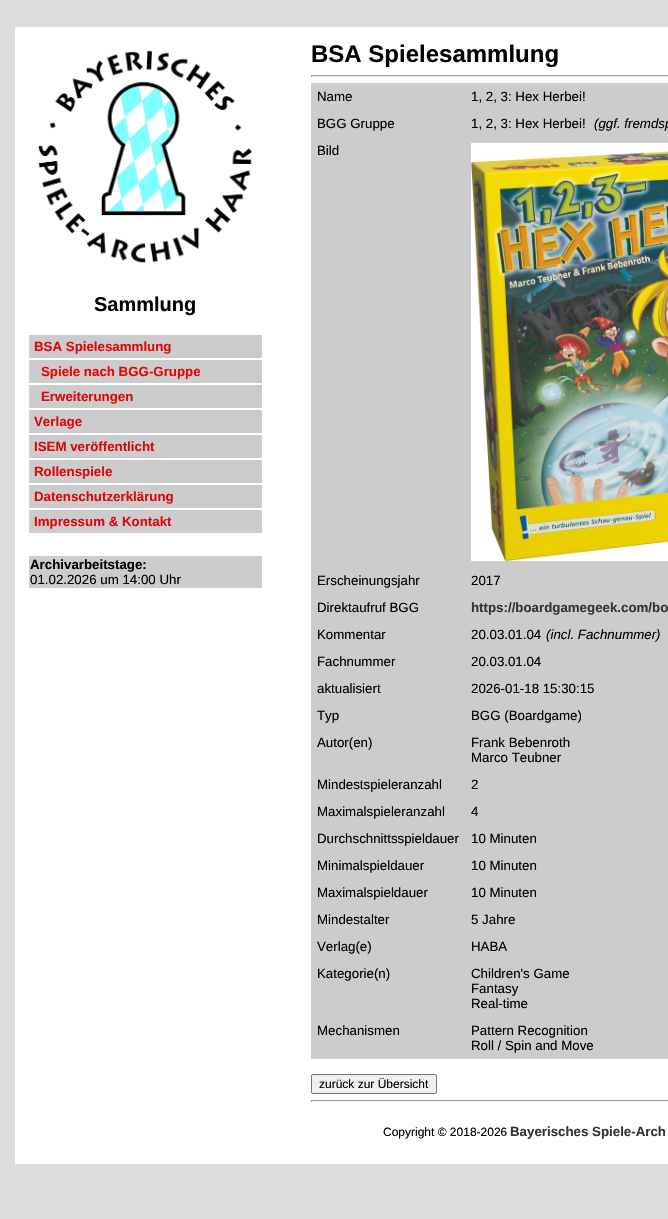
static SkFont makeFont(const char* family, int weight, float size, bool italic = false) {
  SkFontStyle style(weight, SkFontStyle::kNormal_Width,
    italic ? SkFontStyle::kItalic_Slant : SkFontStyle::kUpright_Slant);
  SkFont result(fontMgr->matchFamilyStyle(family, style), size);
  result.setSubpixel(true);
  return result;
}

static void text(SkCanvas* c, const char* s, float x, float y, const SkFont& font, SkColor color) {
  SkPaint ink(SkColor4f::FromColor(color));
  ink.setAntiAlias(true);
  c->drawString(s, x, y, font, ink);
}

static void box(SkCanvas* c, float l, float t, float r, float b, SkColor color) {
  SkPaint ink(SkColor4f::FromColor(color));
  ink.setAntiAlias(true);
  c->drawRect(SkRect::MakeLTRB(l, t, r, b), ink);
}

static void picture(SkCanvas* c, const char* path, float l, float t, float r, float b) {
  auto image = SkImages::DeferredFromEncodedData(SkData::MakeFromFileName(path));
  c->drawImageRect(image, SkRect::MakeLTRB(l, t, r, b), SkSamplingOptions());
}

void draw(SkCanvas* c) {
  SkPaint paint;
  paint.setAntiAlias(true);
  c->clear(0xffdddddd);
  box(c, 15, 27, 668, 1164, 0xffffffff);
  picture(c, "img_01.png", 38, 50, 253, 263);
  SkFont face1 = makeFont("Liberation Sans", 700, 20);
  text(c, "Sammlung", 94, 311, face1, 0xff000000);
  box(c, 29, 335, 262, 358, 0xffcccccc);
  SkFont face2 = makeFont("Liberation Sans", 700, 13.3f);
  text(c, "BSA Spielesammlung", 34, 351, face2, 0xffe10707);
  box(c, 29, 360, 262, 383, 0xffcccccc);
  text(c, "Spiele nach BGG-Gruppe", 41, 376, face2, 0xffe10707);
  box(c, 29, 385, 262, 408, 0xffcccccc);
  text(c, "Erweiterungen", 41, 401, face2, 0xffe10707);
  box(c, 29, 410, 262, 433, 0xffcccccc);
  text(c, "Verlage", 34, 426, face2, 0xffe10707);
  box(c, 29, 435, 262, 458, 0xffcccccc);
  text(c, "ISEM veröffentlicht", 34, 451, face2, 0xffe10707);
  box(c, 29, 460, 262, 483, 0xffcccccc);
  text(c, "Rollenspiele", 34, 476, face2, 0xffe10707);
  box(c, 29, 485, 262, 508, 0xffcccccc);
  text(c, "Datenschutzerklärung", 34, 501, face2, 0xffe10707);
  box(c, 29, 510, 262, 533, 0xffcccccc);
  text(c, "Impressum & Kontakt", 34, 526, face2, 0xffe10707);
  box(c, 29, 556, 262, 588, 0xffcccccc);
  text(c, "Archivarbeitstage:", 30, 569, face2, 0xff000000);
  SkFont face3 = makeFont("Liberation Sans", 400, 13.3f);
  text(c, "01.02.2026 um 14:00 Uhr", 30, 584, face3, 0xff000000);
  SkFont face4 = makeFont("Liberation Sans", 700, 24);
  text(c, "BSA Spielesammlung", 311, 62, face4, 0xff000000);
  box(c, 311, 75, 668, 76, 0xff9f9f9f);
  box(c, 311, 76, 668, 77, 0xffeeeeee);
  box(c, 311, 75, 312, 77, 0xff9f9f9f);
  box(c, 311, 83, 668, 110, 0xffcccccc);
  text(c, "Name", 317, 101, face3, 0xff000000);
  text(c, "1, 2, 3: Hex Herbei!", 471, 101, face3, 0xff000000);
  box(c, 311, 110, 668, 137, 0xffcccccc);
  text(c, "BGG Gruppe", 317, 128, face3, 0xff000000);
  text(c, "1, 2, 3: Hex Herbei!", 471, 128, face3, 0xff000000);
  SkFont face5 = makeFont("Liberation Sans", 400, 13.3f, true);
  text(c, "(ggf. fremdsp", 594, 128, face5, 0xff000000);
  box(c, 311, 137, 668, 567, 0xffcccccc);
  text(c, "Bild", 317, 155, face3, 0xff000000);
  picture(c, "img_02.png", 471, 143, 668, 561);
  box(c, 311, 567, 668, 594, 0xffcccccc);
  text(c, "Erscheinungsjahr", 317, 585, face3, 0xff000000);
  text(c, "2017", 471, 585, face3, 0xff000000);
  box(c, 311, 594, 668, 621, 0xffcccccc);
  text(c, "Direktaufruf BGG", 317, 612, face3, 0xff000000);
  text(c, "https://boardgamegeek.com/bo", 471, 612, face2, 0xff333333);
  box(c, 311, 621, 668, 648, 0xffcccccc);
  text(c, "Kommentar", 317, 639, face3, 0xff000000);
  text(c, "20.03.01.04", 471, 639, face3, 0xff000000);
  text(c, "(incl. Fachnummer)", 546, 639, face5, 0xff000000);
  box(c, 311, 648, 668, 675, 0xffcccccc);
  text(c, "Fachnummer", 317, 666, face3, 0xff000000);
  text(c, "20.03.01.04", 471, 666, face3, 0xff000000);
  box(c, 311, 675, 668, 702, 0xffcccccc);
  text(c, "aktualisiert", 317, 693, face3, 0xff000000);
  text(c, "2026-01-18 15:30:15", 471, 693, face3, 0xff000000);
  box(c, 311, 702, 668, 729, 0xffcccccc);
  text(c, "Typ", 317, 720, face3, 0xff000000);
  text(c, "BGG (Boardgame)", 471, 720, face3, 0xff000000);
  box(c, 311, 729, 668, 771, 0xffcccccc);
  text(c, "Autor(en)", 317, 747, face3, 0xff000000);
  text(c, "Frank Bebenroth", 471, 747, face3, 0xff000000);
  text(c, "Marco Teubner", 471, 762, face3, 0xff000000);
  box(c, 311, 771, 668, 798, 0xffcccccc);
  text(c, "Mindestspieleranzahl", 317, 789, face3, 0xff000000);
  text(c, "2", 471, 789, face3, 0xff000000);
  box(c, 311, 798, 668, 825, 0xffcccccc);
  text(c, "Maximalspieleranzahl", 317, 816, face3, 0xff000000);
  text(c, "4", 471, 816, face3, 0xff000000);
  box(c, 311, 825, 668, 852, 0xffcccccc);
  text(c, "Durchschnittsspieldauer", 317, 843, face3, 0xff000000);
  text(c, "10 Minuten", 471, 843, face3, 0xff000000);
  box(c, 311, 852, 668, 879, 0xffcccccc);
  text(c, "Minimalspieldauer", 317, 870, face3, 0xff000000);
  text(c, "10 Minuten", 471, 870, face3, 0xff000000);
  box(c, 311, 879, 668, 906, 0xffcccccc);
  text(c, "Maximalspieldauer", 317, 897, face3, 0xff000000);
  text(c, "10 Minuten", 471, 897, face3, 0xff000000);
  box(c, 311, 906, 668, 933, 0xffcccccc);
  text(c, "Mindestalter", 317, 924, face3, 0xff000000);
  text(c, "5 Jahre", 471, 924, face3, 0xff000000);
  box(c, 311, 933, 668, 960, 0xffcccccc);
  text(c, "Verlag(e)", 317, 951, face3, 0xff000000);
  text(c, "HABA", 471, 951, face3, 0xff000000);
  box(c, 311, 960, 668, 1017, 0xffcccccc);
  text(c, "Kategorie(n)", 317, 978, face3, 0xff000000);
  text(c, "Children's Game", 471, 978, face3, 0xff000000);
  text(c, "Fantasy", 471, 993, face3, 0xff000000);
  text(c, "Real-time", 471, 1008, face3, 0xff000000);
  box(c, 311, 1017, 668, 1059, 0xffcccccc);
  text(c, "Mechanismen", 317, 1035, face3, 0xff000000);
  text(c, "Pattern Recognition", 471, 1035, face3, 0xff000000);
  text(c, "Roll / Spin and Move", 471, 1050, face3, 0xff000000);
  paint.setColor(0xffefefef);
  c->drawRoundRect(SkRect::MakeLTRB(311.5f, 1074.5f, 436.5f, 1093.5f), 1.5f, 1.5f, paint);
  paint.setStyle(SkPaint::kStroke_Style);
  paint.setStrokeWidth(1);
  paint.setColor(0xff767676);
  c->drawRoundRect(SkRect::MakeLTRB(311.5f, 1074.5f, 436.5f, 1093.5f), 1.5f, 1.5f, paint);
  SkFont face6 = makeFont("Liberation Sans", 400, 12);
  text(c, "zurück zur Übersicht", 319, 1088, face6, 0xff000000);
  box(c, 311, 1100, 668, 1101, 0xff9f9f9f);
  box(c, 311, 1101, 668, 1102, 0xffeeeeee);
  box(c, 311, 1100, 312, 1102, 0xff9f9f9f);
  text(c, "Copyright © 2018-2026", 383, 1136, face6, 0xff000000);
  text(c, "Bayerisches Spiele-Arch", 510, 1136, face2, 0xff333333);
}
